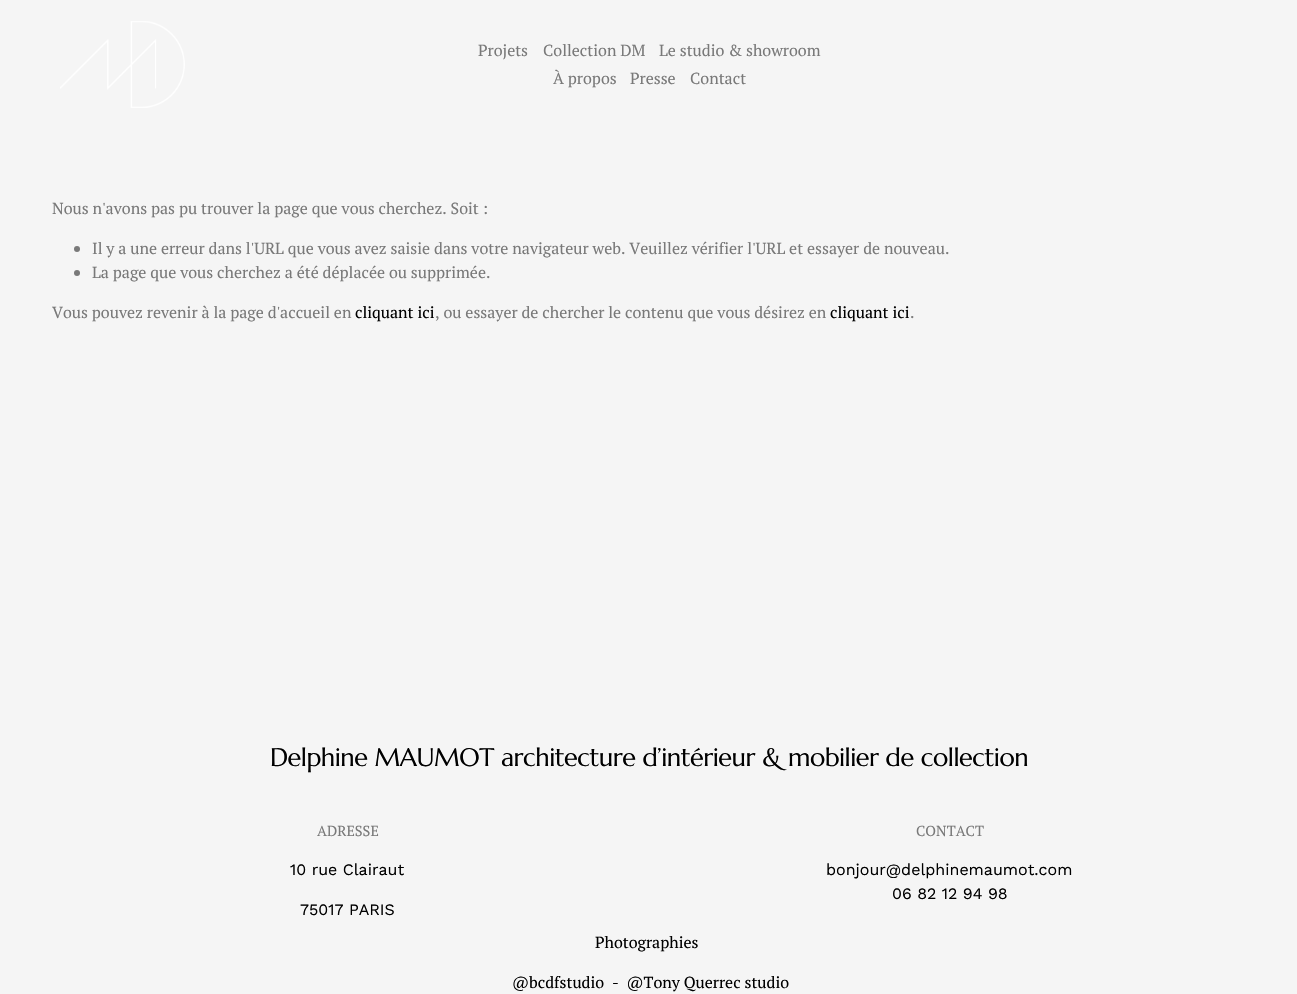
static SkFont makeFont(const char* family, int weight, float size, bool italic = false) {
  SkFontStyle style(weight, SkFontStyle::kNormal_Width,
    italic ? SkFontStyle::kItalic_Slant : SkFontStyle::kUpright_Slant);
  SkFont result(fontMgr->matchFamilyStyle(family, style), size);
  result.setSubpixel(true);
  return result;
}

static void text(SkCanvas* c, const char* s, float x, float y, const SkFont& font, SkColor color) {
  SkPaint ink(SkColor4f::FromColor(color));
  ink.setAntiAlias(true);
  c->drawString(s, x, y, font, ink);
}

static void spacedText(SkCanvas* c, const char* s, float x, float y, const SkFont& font, const SkPaint& ink, float letter, float word) {
  std::vector<SkGlyphID> glyphs(font.countText(s, strlen(s), SkTextEncoding::kUTF8));
  std::vector<float> xs(glyphs.size());
  font.textToGlyphs(s, strlen(s), SkTextEncoding::kUTF8, glyphs);
  font.getXPos(glyphs, xs, x);
  float extra = 0;
  for (size_t i = 0; i < glyphs.size(); i++) {
    xs[i] += extra;
    extra += letter + word * (glyphs[i] == font.unicharToGlyph(' '));
  }
  c->drawTextBlob(SkTextBlob::MakeFromPosHGlyphs(glyphs, xs, y, font), 0, 0, ink);
}

static void picture(SkCanvas* c, const char* path, float l, float t, float r, float b) {
  auto image = SkImages::DeferredFromEncodedData(SkData::MakeFromFileName(path));
  c->drawImageRect(image, SkRect::MakeLTRB(l, t, r, b), SkSamplingOptions());
}

void draw(SkCanvas* c) {
  SkPaint paint;
  paint.setAntiAlias(true);
  c->clear(0xfff5f5f5);
  picture(c, "img_01.png", 60, 21, 185, 108);
  SkFont face1 = makeFont("PT Serif", 400, 16);
  text(c, "Projets", 478, 56, face1, 0xff797979);
  text(c, "Collection DM", 543, 56, face1, 0xff797979);
  text(c, "Le studio & showroom", 659, 56, face1, 0xff797979);
  text(c, "À propos", 553, 84, face1, 0xff797979);
  text(c, "Presse", 630, 84, face1, 0xff797979);
  text(c, "Contact", 690, 84, face1, 0xff797979);
  text(c, "Nous n'avons pas pu trouver la page que vous cherchez. Soit :", 52, 214, face1, 0xff797979);
  paint.setColor(0xff797979);
  c->drawCircle(77, 249, 3, paint);
  text(c, "Il y a une erreur dans l'URL que vous avez saisie dans votre navigateur web. Veuillez vérifier l'URL et essayer de nouveau.", 92, 254, face1, 0xff797979);
  c->drawCircle(77, 273, 3, paint);
  text(c, "La page que vous cherchez a été déplacée ou supprimée.", 92, 278, face1, 0xff797979);
  text(c, "Vous pouvez revenir à la page d'accueil en", 52, 318, face1, 0xff797979);
  text(c, "cliquant ici", 355, 318, face1, 0xff000000);
  text(c, ", ou essayer de chercher le contenu que vous désirez en", 435, 318, face1, 0xff797979);
  text(c, "cliquant ici", 830, 318, face1, 0xff000000);
  text(c, ".", 910, 318, face1, 0xff797979);
  SkFont face2 = makeFont("Marcellus", 400, 25.35f);
  paint.setColor(0xff000000);
  spacedText(c, "Delphine MAUMOT architecture d’intérieur & mobilier de collection", 270, 766, face2, paint, -0.5f, 0);
  SkFont face3 = makeFont("PT Serif", 400, 14.5f);
  text(c, "ADRESSE", 317, 836, face3, 0xff797979);
  SkFont face4 = makeFont("Work Sans", 400, 16);
  text(c, "10 rue Clairaut", 290, 875, face4, 0xff000000);
  text(c, "75017 PARIS", 300, 915, face4, 0xff000000);
  text(c, "CONTACT", 916, 836, face3, 0xff797979);
  text(c, "bonjour@delphinemaumot.com", 826, 875, face4, 0xff000000);
  text(c, "06 82 12 94 98", 892, 899, face4, 0xff000000);
  text(c, "Photographies", 595, 948, face1, 0xff000000);
  text(c, "@bcdfstudio  -  @Tony Querrec studio", 512, 988, face1, 0xff000000);
}
